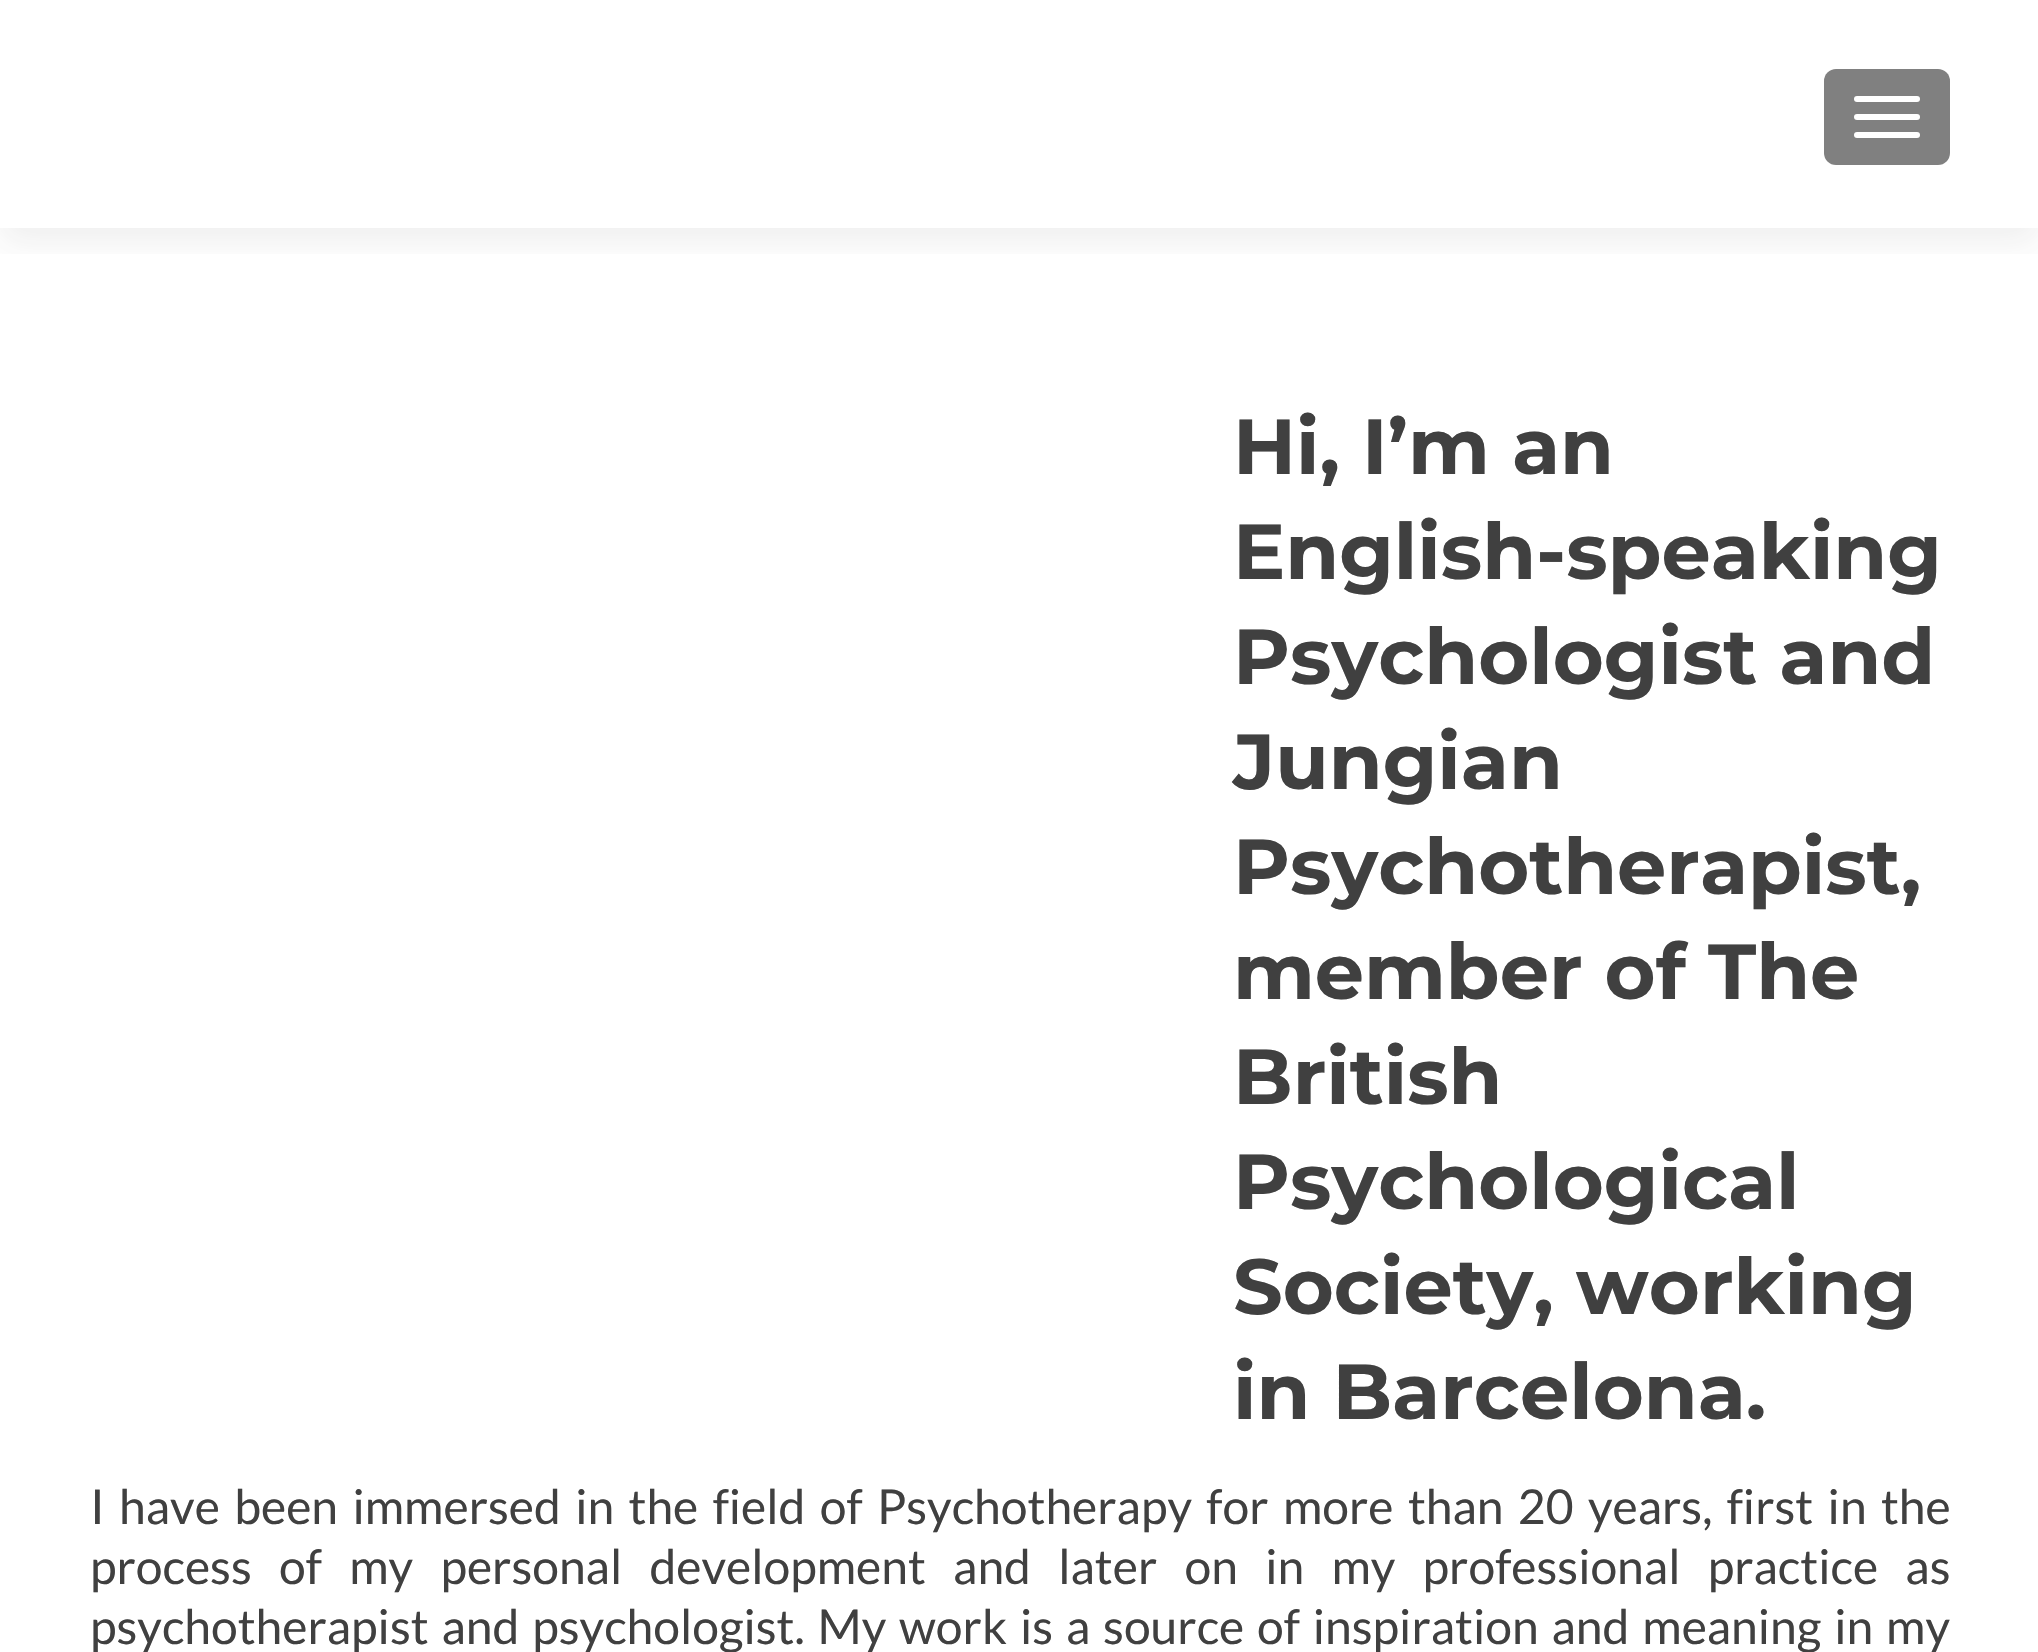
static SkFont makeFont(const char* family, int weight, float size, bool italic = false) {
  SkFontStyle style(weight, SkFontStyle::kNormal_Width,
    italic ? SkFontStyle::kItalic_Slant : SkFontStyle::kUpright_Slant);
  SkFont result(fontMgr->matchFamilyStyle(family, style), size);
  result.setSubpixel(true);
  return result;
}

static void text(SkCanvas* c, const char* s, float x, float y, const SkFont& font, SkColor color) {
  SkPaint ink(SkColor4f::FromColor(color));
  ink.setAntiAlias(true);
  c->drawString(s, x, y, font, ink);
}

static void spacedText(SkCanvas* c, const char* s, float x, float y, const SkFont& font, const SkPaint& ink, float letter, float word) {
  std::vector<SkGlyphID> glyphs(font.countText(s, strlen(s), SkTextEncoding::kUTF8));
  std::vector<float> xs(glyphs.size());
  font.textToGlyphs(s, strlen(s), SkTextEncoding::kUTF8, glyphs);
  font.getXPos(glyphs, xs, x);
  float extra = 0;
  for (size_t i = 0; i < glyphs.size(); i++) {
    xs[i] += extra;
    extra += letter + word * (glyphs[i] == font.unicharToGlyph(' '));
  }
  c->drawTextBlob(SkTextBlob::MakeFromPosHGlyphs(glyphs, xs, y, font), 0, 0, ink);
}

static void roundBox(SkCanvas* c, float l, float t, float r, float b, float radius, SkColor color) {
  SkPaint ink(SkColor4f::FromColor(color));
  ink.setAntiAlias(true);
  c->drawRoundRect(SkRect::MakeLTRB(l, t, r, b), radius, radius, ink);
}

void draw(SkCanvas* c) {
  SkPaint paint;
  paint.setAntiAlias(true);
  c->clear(0xffffffff);
  c->save();
  c->clipRect(SkRect::MakeLTRB(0, 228, 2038, 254));
  paint.setColor(0x14323232);
  paint.setMaskFilter(SkMaskFilter::MakeBlur(kNormal_SkBlurStyle, 16.5f));
  c->drawRect(SkRect::MakeLTRB(0, 15, 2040, 243), paint);
  paint.setMaskFilter(nullptr);
  c->restore();
  roundBox(c, 1824, 69, 1950, 165, 12, 0xff808080);
  roundBox(c, 1854, 96, 1920, 102, 3, 0xffffffff);
  roundBox(c, 1854, 114, 1920, 120, 3, 0xffffffff);
  roundBox(c, 1854, 132, 1920, 138, 3, 0xffffffff);
  SkFont face1 = makeFont("Montserrat", 100, 78);
  text(c, "Hi, I’m an", 1233, 474, face1, 0xff404040);
  text(c, "English-speaking", 1233, 579, face1, 0xff404040);
  text(c, "Psychologist and", 1233, 684, face1, 0xff404040);
  text(c, "Jungian", 1233, 789, face1, 0xff404040);
  text(c, "Psychotherapist,", 1233, 894, face1, 0xff404040);
  text(c, "member of The", 1233, 999, face1, 0xff404040);
  text(c, "British", 1233, 1104, face1, 0xff404040);
  text(c, "Psychological", 1233, 1209, face1, 0xff404040);
  text(c, "Society, working", 1233, 1314, face1, 0xff404040);
  text(c, "in Barcelona.", 1233, 1419, face1, 0xff404040);
  SkFont face2 = makeFont("Lato", 400, 48);
  paint.setColor(0xff404040);
  spacedText(c, "I have been immersed in the field of Psychotherapy for more than 20 years, first in the", 90, 1524, face2, paint, 0, 5.1f);
  spacedText(c, "process of my personal development and later on in my professional practice as", 90, 1584, face2, paint, 0, 18);
  spacedText(c, "psychotherapist and psychologist. My work is a source of inspiration and meaning in my", 90, 1644, face2, paint, 0, 3.6f);
}
